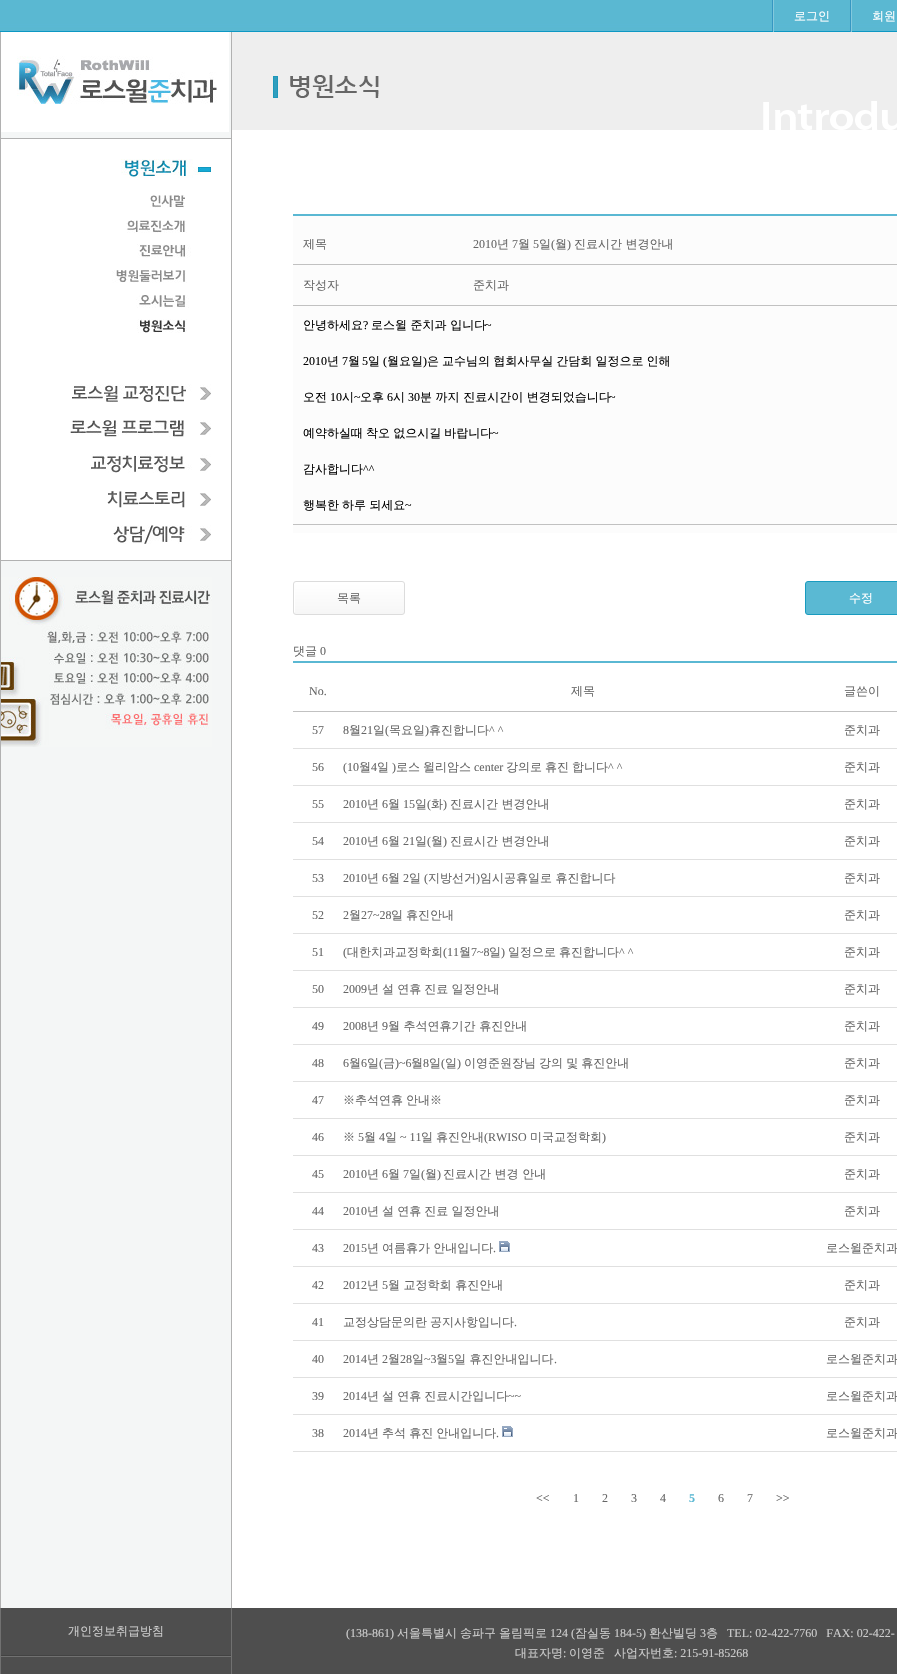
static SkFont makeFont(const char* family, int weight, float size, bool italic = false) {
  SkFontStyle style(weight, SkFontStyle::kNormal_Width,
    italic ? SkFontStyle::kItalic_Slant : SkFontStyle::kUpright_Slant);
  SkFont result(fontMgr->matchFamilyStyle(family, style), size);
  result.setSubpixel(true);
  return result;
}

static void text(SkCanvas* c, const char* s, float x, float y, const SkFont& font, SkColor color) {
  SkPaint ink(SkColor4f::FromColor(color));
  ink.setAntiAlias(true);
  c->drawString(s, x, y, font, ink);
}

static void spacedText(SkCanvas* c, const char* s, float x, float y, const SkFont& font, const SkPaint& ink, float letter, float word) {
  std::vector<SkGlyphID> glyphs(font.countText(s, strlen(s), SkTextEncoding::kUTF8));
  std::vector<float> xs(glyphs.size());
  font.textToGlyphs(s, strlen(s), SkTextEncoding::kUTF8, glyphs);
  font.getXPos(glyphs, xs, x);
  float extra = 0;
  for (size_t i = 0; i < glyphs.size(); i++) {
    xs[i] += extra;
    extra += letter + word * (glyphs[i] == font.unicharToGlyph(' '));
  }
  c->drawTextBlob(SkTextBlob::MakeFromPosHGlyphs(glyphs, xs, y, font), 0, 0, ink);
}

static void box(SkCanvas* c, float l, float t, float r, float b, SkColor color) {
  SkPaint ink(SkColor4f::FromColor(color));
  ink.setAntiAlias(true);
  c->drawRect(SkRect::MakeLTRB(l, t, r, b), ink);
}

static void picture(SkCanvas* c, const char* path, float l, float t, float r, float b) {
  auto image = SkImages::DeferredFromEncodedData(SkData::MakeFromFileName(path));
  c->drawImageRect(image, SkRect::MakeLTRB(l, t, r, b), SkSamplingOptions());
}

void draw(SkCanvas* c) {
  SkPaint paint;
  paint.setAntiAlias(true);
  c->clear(0xffffffff);
  picture(c, "img_01.png", 0, 0, 897, 130);
  box(c, 772, 0, 773, 31, 0xff3697c2);
  box(c, 850, 0, 851, 32, 0xff3697c2);
  box(c, 773, 0, 774, 32, 0xff83c9dd);
  SkFont face1 = makeFont("WenQuanYi Zen Hei", 500, 12);
  text(c, "로그인", 794, 20, face1, 0xffffffff);
  box(c, 851, 0, 852, 32, 0xff83c9dd);
  text(c, "회원", 872, 20, face1, 0xffffffff);
  box(c, 1, 32, 231, 1608, 0xfff4f6f6);
  box(c, 231, 32, 232, 1608, 0xffb1b1b1);
  box(c, 0, 32, 1, 1608, 0xffb1b1b1);
  picture(c, "img_02.png", 1, 32, 229, 132);
  box(c, 1, 139, 231, 560, 0xffffffff);
  box(c, 1, 138, 231, 139, 0xffb1b1b1);
  box(c, 1, 560, 231, 561, 0xffb1b1b1);
  picture(c, "img_03.png", 121, 159, 211, 178);
  picture(c, "img_04.png", 150, 195, 185, 208);
  picture(c, "img_05.png", 126, 220, 187, 233);
  picture(c, "img_06.png", 137, 244, 191, 258);
  picture(c, "img_07.png", 112, 270, 187, 283);
  picture(c, "img_08.png", 136, 295, 189, 308);
  picture(c, "img_09.png", 137, 319, 187, 333);
  picture(c, "img_10.png", 72, 384, 211, 402);
  picture(c, "img_11.png", 70, 420, 211, 437);
  picture(c, "img_12.png", 90, 454, 211, 473);
  picture(c, "img_13.png", 107, 491, 211, 508);
  picture(c, "img_14.png", 113, 525, 211, 544);
  picture(c, "img_15.png", 1, 577, 212, 747);
  picture(c, "img_16.png", 273, 75, 897, 130);
  box(c, 293, 216, 897, 533, 0xfffcfcfc);
  box(c, 293, 214, 897, 216, 0xff5ab8d3);
  box(c, 293, 264, 897, 265, 0xffc1c1c1);
  text(c, "제목", 303, 248, face1, 0xff666666);
  SkFont face2 = makeFont("Liberation Serif", 400, 12);
  text(c, "2010", 473, 248, face2, 0xff666666);
  text(c, "년", 497, 248, face1, 0xff666666);
  text(c, "7", 512, 248, face2, 0xff666666);
  text(c, "월", 518, 248, face1, 0xff666666);
  text(c, "5", 533, 248, face2, 0xff666666);
  text(c, "일", 539, 248, face1, 0xff666666);
  text(c, "(", 551, 248, face2, 0xff666666);
  text(c, "월", 555, 248, face1, 0xff666666);
  text(c, ")", 567, 248, face2, 0xff666666);
  text(c, "진료시간 변경안내", 574, 248, face1, 0xff666666);
  box(c, 293, 305, 897, 306, 0xffc1c1c1);
  text(c, "작성자", 303, 289, face1, 0xff666666);
  text(c, "준치과", 473, 289, face1, 0xff666666);
  box(c, 293, 524, 897, 525, 0xffc1c1c1);
  text(c, "안녕하세요", 303, 329, face1, 0xff000000);
  text(c, "?", 363, 329, face2, 0xff000000);
  text(c, "로스윌 준치과 입니다", 371, 329, face1, 0xff000000);
  text(c, "~", 485, 329, face2, 0xff000000);
  text(c, "2010", 303, 365, face2, 0xff000000);
  text(c, "년", 327, 365, face1, 0xff000000);
  text(c, "7", 342, 365, face2, 0xff000000);
  text(c, "월", 348, 365, face1, 0xff000000);
  text(c, "5", 362, 365, face2, 0xff000000);
  text(c, "일", 368, 365, face1, 0xff000000);
  text(c, "(", 383, 365, face2, 0xff000000);
  text(c, "월요일", 387, 365, face1, 0xff000000);
  text(c, ")", 423, 365, face2, 0xff000000);
  paint.setColor(0xff000000);
  spacedText(c, "은 교수님의 협회사무실 간담회 일정으로 인해", 427, 365, face1, paint, 0, -0.5f);
  text(c, "오전", 303, 401, face1, 0xff000000);
  text(c, "10", 330, 401, face2, 0xff000000);
  text(c, "시", 342, 401, face1, 0xff000000);
  text(c, "~", 354, 401, face2, 0xff000000);
  text(c, "오후", 360, 401, face1, 0xff000000);
  text(c, "6", 387, 401, face2, 0xff000000);
  text(c, "시", 393, 401, face1, 0xff000000);
  text(c, "30", 408, 401, face2, 0xff000000);
  text(c, "분 까지 진료시간이 변경되었습니다", 420, 401, face1, 0xff000000);
  text(c, "~", 609, 401, face2, 0xff000000);
  spacedText(c, "예약하실때 착오 없으시길 바랍니다", 303, 437, face1, paint, 0, -0.5f);
  text(c, "~", 492, 437, face2, 0xff000000);
  text(c, "감사합니다", 303, 473, face1, 0xff000000);
  text(c, "^^", 363, 473, face2, 0xff000000);
  spacedText(c, "행복한 하루 되세요", 303, 509, face1, paint, 0, -0.5f);
  text(c, "~", 405, 509, face2, 0xff000000);
  c->save();
  c->clipPath(SkPathBuilder().moveTo(296, 581).lineTo(402, 581).cubicTo(403.5f, 581, 405, 582.5f, 405, 584).lineTo(405, 612).cubicTo(405, 613.5f, 403.5f, 615, 402, 615).lineTo(296, 615).cubicTo(294.5f, 615, 293, 613.5f, 293, 612).lineTo(293, 584).cubicTo(293, 582.5f, 294.5f, 581, 296, 581).close().detach(), true);
  {
    const SkColor colors[] = {0xffffffff, 0xfff6f6f6};
    const float stops[] = {0.05f, 1};
    const SkPoint ends[] = {{294, 582}, {294, 614}};
    paint.setShader(SkGradientShader::MakeLinear(ends, colors, stops, 2, SkTileMode::kClamp));
    paint.setAlpha(255);
  }
  c->drawRect(SkRect::MakeLTRB(293, 582, 405, 614), paint);
  c->restore();
  paint.setShader(nullptr);
  paint.setColor(0xffffffff);
  c->drawPath(SkPathBuilder().moveTo(297, 583).lineTo(404, 583).cubicTo(404, 583, 403, 582, 402, 582).lineTo(296, 582).cubicTo(295, 582, 294, 583, 294, 584).lineTo(294, 612).cubicTo(294, 613, 295, 614, 295, 614).lineTo(295, 590).cubicTo(295, 589, 294, 583, 297, 583).close().detach(), paint);
  paint.setStyle(SkPaint::kStroke_Style);
  paint.setStrokeWidth(1);
  paint.setColor(0xffdcdcdc);
  c->drawRoundRect(SkRect::MakeLTRB(293.5f, 581.5f, 404.5f, 614.5f), 2.5f, 2.5f, paint);
  text(c, "목록", 337, 602, face1, 0xff666666);
  paint.setStyle(SkPaint::kFill_Style);
  paint.setColor(0xff5ab9d3);
  c->drawRoundRect(SkRect::MakeLTRB(805.5f, 581.5f, 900.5f, 614.5f), 2.5f, 2.5f, paint);
  paint.setStyle(SkPaint::kStroke_Style);
  paint.setColor(0xff199bbf);
  c->drawRoundRect(SkRect::MakeLTRB(805.5f, 581.5f, 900.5f, 614.5f), 2.5f, 2.5f, paint);
  text(c, "수정", 849, 602, face1, 0xffffffff);
  text(c, "댓글", 293, 655, face1, 0xff666666);
  text(c, "0", 320, 655, face2, 0xff666666);
  box(c, 293, 661, 897, 663, 0xff5ab8d3);
  box(c, 293, 711, 897, 712, 0xffc1c1c1);
  text(c, "No.", 309, 695, face2, 0xff666666);
  text(c, "제목", 571, 695, face1, 0xff666666);
  text(c, "글쓴이", 844, 695, face1, 0xff666666);
  box(c, 293, 748, 897, 749, 0xffe0e0e0);
  text(c, "57", 312, 734, face2, 0xff666666);
  text(c, "8", 343, 734, face2, 0xff666666);
  text(c, "월", 349, 734, face1, 0xff666666);
  text(c, "21", 361, 734, face2, 0xff666666);
  text(c, "일", 373, 734, face1, 0xff666666);
  text(c, "(", 385, 734, face2, 0xff666666);
  text(c, "목요일", 389, 734, face1, 0xff666666);
  text(c, ")", 425, 734, face2, 0xff666666);
  text(c, "휴진합니다", 429, 734, face1, 0xff666666);
  text(c, "^ ^", 489, 734, face2, 0xff666666);
  text(c, "준치과", 844, 734, face1, 0xff666666);
  box(c, 293, 785, 897, 786, 0xffe0e0e0);
  text(c, "56", 312, 771, face2, 0xff666666);
  text(c, "(10", 343, 771, face2, 0xff666666);
  text(c, "월", 359, 771, face1, 0xff666666);
  text(c, "4", 371, 771, face2, 0xff666666);
  text(c, "일", 377, 771, face1, 0xff666666);
  text(c, ")", 392, 771, face2, 0xff666666);
  text(c, "로스", 396, 771, face1, 0xff666666);
  text(c, "윌리암스", 423, 771, face1, 0xff666666);
  text(c, "center", 474, 771, face2, 0xff666666);
  text(c, "강의로", 506, 771, face1, 0xff666666);
  text(c, "휴진", 545, 771, face1, 0xff666666);
  text(c, "합니다", 572, 771, face1, 0xff666666);
  text(c, "^ ^", 608, 771, face2, 0xff666666);
  text(c, "준치과", 844, 771, face1, 0xff666666);
  box(c, 293, 822, 897, 823, 0xffe0e0e0);
  text(c, "55", 312, 808, face2, 0xff666666);
  text(c, "2010", 343, 808, face2, 0xff666666);
  text(c, "년", 367, 808, face1, 0xff666666);
  text(c, "6", 382, 808, face2, 0xff666666);
  text(c, "월", 388, 808, face1, 0xff666666);
  text(c, "15", 403, 808, face2, 0xff666666);
  text(c, "일", 415, 808, face1, 0xff666666);
  text(c, "(", 427, 808, face2, 0xff666666);
  text(c, "화", 431, 808, face1, 0xff666666);
  text(c, ")", 443, 808, face2, 0xff666666);
  text(c, "진료시간 변경안내", 450, 808, face1, 0xff666666);
  text(c, "준치과", 844, 808, face1, 0xff666666);
  box(c, 293, 859, 897, 860, 0xffe0e0e0);
  text(c, "54", 312, 845, face2, 0xff666666);
  text(c, "2010", 343, 845, face2, 0xff666666);
  text(c, "년", 367, 845, face1, 0xff666666);
  text(c, "6", 382, 845, face2, 0xff666666);
  text(c, "월", 388, 845, face1, 0xff666666);
  text(c, "21", 403, 845, face2, 0xff666666);
  text(c, "일", 415, 845, face1, 0xff666666);
  text(c, "(", 427, 845, face2, 0xff666666);
  text(c, "월", 431, 845, face1, 0xff666666);
  text(c, ")", 443, 845, face2, 0xff666666);
  text(c, "진료시간 변경안내", 450, 845, face1, 0xff666666);
  text(c, "준치과", 844, 845, face1, 0xff666666);
  box(c, 293, 896, 897, 897, 0xffe0e0e0);
  text(c, "53", 312, 882, face2, 0xff666666);
  text(c, "2010", 343, 882, face2, 0xff666666);
  text(c, "년", 367, 882, face1, 0xff666666);
  text(c, "6", 382, 882, face2, 0xff666666);
  text(c, "월", 388, 882, face1, 0xff666666);
  text(c, "2", 403, 882, face2, 0xff666666);
  text(c, "일", 409, 882, face1, 0xff666666);
  text(c, "(", 424, 882, face2, 0xff666666);
  text(c, "지방선거", 428, 882, face1, 0xff666666);
  text(c, ")", 476, 882, face2, 0xff666666);
  text(c, "임시공휴일로 휴진합니다", 480, 882, face1, 0xff666666);
  text(c, "준치과", 844, 882, face1, 0xff666666);
  box(c, 293, 933, 897, 934, 0xffe0e0e0);
  text(c, "52", 312, 919, face2, 0xff666666);
  text(c, "2", 343, 919, face2, 0xff666666);
  text(c, "월", 349, 919, face1, 0xff666666);
  text(c, "27~28", 361, 919, face2, 0xff666666);
  paint.setStyle(SkPaint::kFill_Style);
  paint.setColor(0xff666666);
  spacedText(c, "일 휴진안내", 391, 919, face1, paint, 0, -0.5f);
  text(c, "준치과", 844, 919, face1, 0xff666666);
  box(c, 293, 970, 897, 971, 0xffe0e0e0);
  text(c, "51", 312, 956, face2, 0xff666666);
  text(c, "(", 343, 956, face2, 0xff666666);
  text(c, "대한치과교정학회", 347, 956, face1, 0xff666666);
  text(c, "(11", 443, 956, face2, 0xff666666);
  text(c, "월", 459, 956, face1, 0xff666666);
  text(c, "7~8", 471, 956, face2, 0xff666666);
  text(c, "일", 489, 956, face1, 0xff666666);
  text(c, ")", 501, 956, face2, 0xff666666);
  text(c, "일정으로", 508, 956, face1, 0xff666666);
  text(c, "휴진합니다", 559, 956, face1, 0xff666666);
  text(c, "^ ^", 619, 956, face2, 0xff666666);
  text(c, "준치과", 844, 956, face1, 0xff666666);
  box(c, 293, 1007, 897, 1008, 0xffe0e0e0);
  text(c, "50", 312, 993, face2, 0xff666666);
  text(c, "2009", 343, 993, face2, 0xff666666);
  spacedText(c, "년 설 연휴 진료 일정안내", 367, 993, face1, paint, 0, -0.5f);
  text(c, "준치과", 844, 993, face1, 0xff666666);
  box(c, 293, 1044, 897, 1045, 0xffe0e0e0);
  text(c, "49", 312, 1030, face2, 0xff666666);
  text(c, "2008", 343, 1030, face2, 0xff666666);
  text(c, "년", 367, 1030, face1, 0xff666666);
  text(c, "9", 382, 1030, face2, 0xff666666);
  text(c, "월 추석연휴기간 휴진안내", 388, 1030, face1, 0xff666666);
  text(c, "준치과", 844, 1030, face1, 0xff666666);
  box(c, 293, 1081, 897, 1082, 0xffe0e0e0);
  text(c, "48", 312, 1067, face2, 0xff666666);
  text(c, "6", 343, 1067, face2, 0xff666666);
  text(c, "월", 349, 1067, face1, 0xff666666);
  text(c, "6", 361, 1067, face2, 0xff666666);
  text(c, "일", 367, 1067, face1, 0xff666666);
  text(c, "(", 379, 1067, face2, 0xff666666);
  text(c, "금", 383, 1067, face1, 0xff666666);
  text(c, ")~6", 395, 1067, face2, 0xff666666);
  text(c, "월", 411, 1067, face1, 0xff666666);
  text(c, "8", 423, 1067, face2, 0xff666666);
  text(c, "일", 429, 1067, face1, 0xff666666);
  text(c, "(", 441, 1067, face2, 0xff666666);
  text(c, "일", 445, 1067, face1, 0xff666666);
  text(c, ")", 457, 1067, face2, 0xff666666);
  spacedText(c, "이영준원장님 강의 및 휴진안내", 464, 1067, face1, paint, 0, -0.5f);
  text(c, "준치과", 844, 1067, face1, 0xff666666);
  box(c, 293, 1118, 897, 1119, 0xffe0e0e0);
  text(c, "47", 312, 1104, face2, 0xff666666);
  spacedText(c, "※추석연휴 안내※", 343, 1104, face1, paint, 0, -0.5f);
  text(c, "준치과", 844, 1104, face1, 0xff666666);
  box(c, 293, 1155, 897, 1156, 0xffe0e0e0);
  text(c, "46", 312, 1141, face2, 0xff666666);
  text(c, "※", 343, 1141, face1, 0xff666666);
  text(c, "5", 358, 1141, face2, 0xff666666);
  text(c, "월", 364, 1141, face1, 0xff666666);
  text(c, "4", 379, 1141, face2, 0xff666666);
  text(c, "일", 385, 1141, face1, 0xff666666);
  text(c, "~ 11", 400, 1141, face2, 0xff666666);
  text(c, "일", 421, 1141, face1, 0xff666666);
  text(c, "휴진안내", 436, 1141, face1, 0xff666666);
  text(c, "(RWISO", 484, 1141, face2, 0xff666666);
  text(c, "미국교정학회", 530, 1141, face1, 0xff666666);
  text(c, ")", 602, 1141, face2, 0xff666666);
  text(c, "준치과", 844, 1141, face1, 0xff666666);
  box(c, 293, 1192, 897, 1193, 0xffe0e0e0);
  text(c, "45", 312, 1178, face2, 0xff666666);
  text(c, "2010", 343, 1178, face2, 0xff666666);
  text(c, "년", 367, 1178, face1, 0xff666666);
  text(c, "6", 382, 1178, face2, 0xff666666);
  text(c, "월", 388, 1178, face1, 0xff666666);
  text(c, "7", 403, 1178, face2, 0xff666666);
  text(c, "일", 409, 1178, face1, 0xff666666);
  text(c, "(", 421, 1178, face2, 0xff666666);
  text(c, "월", 425, 1178, face1, 0xff666666);
  text(c, ")", 437, 1178, face2, 0xff666666);
  text(c, "진료시간 변경 안내", 443, 1178, face1, 0xff666666);
  text(c, "준치과", 844, 1178, face1, 0xff666666);
  box(c, 293, 1229, 897, 1230, 0xffe0e0e0);
  text(c, "44", 312, 1215, face2, 0xff666666);
  text(c, "2010", 343, 1215, face2, 0xff666666);
  spacedText(c, "년 설 연휴 진료 일정안내", 367, 1215, face1, paint, 0, -0.5f);
  text(c, "준치과", 844, 1215, face1, 0xff666666);
  box(c, 293, 1266, 897, 1267, 0xffe0e0e0);
  text(c, "43", 312, 1252, face2, 0xff666666);
  text(c, "2015", 343, 1252, face2, 0xff666666);
  spacedText(c, "년 여름휴가 안내입니다", 367, 1252, face1, paint, 0, -0.5f);
  text(c, ".", 493, 1252, face2, 0xff666666);
  picture(c, "img_17.png", 499, 1241, 510, 1252);
  text(c, "로스윌준치과", 826, 1252, face1, 0xff666666);
  box(c, 293, 1303, 897, 1304, 0xffe0e0e0);
  text(c, "42", 312, 1289, face2, 0xff666666);
  text(c, "2012", 343, 1289, face2, 0xff666666);
  text(c, "년", 367, 1289, face1, 0xff666666);
  text(c, "5", 382, 1289, face2, 0xff666666);
  text(c, "월 교정학회 휴진안내", 388, 1289, face1, 0xff666666);
  text(c, "준치과", 844, 1289, face1, 0xff666666);
  box(c, 293, 1340, 897, 1341, 0xffe0e0e0);
  text(c, "41", 312, 1326, face2, 0xff666666);
  spacedText(c, "교정상담문의란 공지사항입니다", 343, 1326, face1, paint, 0, -0.5f);
  text(c, ".", 514, 1326, face2, 0xff666666);
  text(c, "준치과", 844, 1326, face1, 0xff666666);
  box(c, 293, 1377, 897, 1378, 0xffe0e0e0);
  text(c, "40", 312, 1363, face2, 0xff666666);
  text(c, "2014", 343, 1363, face2, 0xff666666);
  text(c, "년", 367, 1363, face1, 0xff666666);
  text(c, "2", 382, 1363, face2, 0xff666666);
  text(c, "월", 388, 1363, face1, 0xff666666);
  text(c, "28", 400, 1363, face2, 0xff666666);
  text(c, "일", 412, 1363, face1, 0xff666666);
  text(c, "~3", 424, 1363, face2, 0xff666666);
  text(c, "월", 436, 1363, face1, 0xff666666);
  text(c, "5", 448, 1363, face2, 0xff666666);
  text(c, "일 휴진안내입니다", 454, 1363, face1, 0xff666666);
  text(c, ".", 554, 1363, face2, 0xff666666);
  text(c, "로스윌준치과", 826, 1363, face1, 0xff666666);
  box(c, 293, 1414, 897, 1415, 0xffe0e0e0);
  text(c, "39", 312, 1400, face2, 0xff666666);
  text(c, "2014", 343, 1400, face2, 0xff666666);
  spacedText(c, "년 설 연휴 진료시간입니다", 367, 1400, face1, paint, 0, -0.5f);
  text(c, "~~", 508, 1400, face2, 0xff666666);
  text(c, "로스윌준치과", 826, 1400, face1, 0xff666666);
  box(c, 293, 1451, 897, 1452, 0xffe0e0e0);
  text(c, "38", 312, 1437, face2, 0xff666666);
  text(c, "2014", 343, 1437, face2, 0xff666666);
  spacedText(c, "년 추석 휴진 안내입니다", 367, 1437, face1, paint, 0, -0.5f);
  text(c, ".", 496, 1437, face2, 0xff666666);
  picture(c, "img_17.png", 502, 1426, 513, 1437);
  text(c, "로스윌준치과", 826, 1437, face1, 0xff666666);
  text(c, "<<", 536, 1502, face2, 0xff666666);
  text(c, "1", 573, 1502, face2, 0xff666666);
  text(c, "2", 602, 1502, face2, 0xff666666);
  text(c, "3", 631, 1502, face2, 0xff666666);
  text(c, "4", 660, 1502, face2, 0xff666666);
  SkFont face3 = makeFont("Liberation Serif", 700, 12);
  text(c, "5", 689, 1502, face3, 0xff5ab8d3);
  text(c, "6", 718, 1502, face2, 0xff666666);
  text(c, "7", 747, 1502, face2, 0xff666666);
  text(c, ">>", 776, 1502, face2, 0xff666666);
  box(c, 1, 1608, 897, 1674, 0xff4e4e4e);
  box(c, 231, 1608, 232, 1674, 0xff717171);
  box(c, 0, 1608, 1, 1674, 0xff717171);
  box(c, 1, 1655, 231, 1656, 0xff434343);
  text(c, "개인정보취급방침", 68, 1635, face1, 0xffcccccc);
  box(c, 1, 1656, 231, 1657, 0xff717171);
  text(c, "(138-861)", 346, 1637, face2, 0xffcccccc);
  text(c, "서울특별시", 397, 1637, face1, 0xffcccccc);
  text(c, "송파구", 460, 1637, face1, 0xffcccccc);
  text(c, "올림픽로", 499, 1637, face1, 0xffcccccc);
  text(c, "124 (", 550, 1637, face2, 0xffcccccc);
  text(c, "잠실동", 575, 1637, face1, 0xffcccccc);
  text(c, "184-5)", 614, 1637, face2, 0xffcccccc);
  text(c, "환산빌딩", 649, 1637, face1, 0xffcccccc);
  text(c, "3", 700, 1637, face2, 0xffcccccc);
  text(c, "층", 706, 1637, face1, 0xffcccccc);
  text(c, "TEL: 02-422-7760   FAX: 02-422-", 727, 1637, face2, 0xffcccccc);
  text(c, "대표자명", 515, 1657, face1, 0xffcccccc);
  text(c, ":", 563, 1657, face2, 0xffcccccc);
  text(c, "이영준", 569, 1657, face1, 0xffcccccc);
  text(c, "사업자번호", 614, 1657, face1, 0xffcccccc);
  text(c, ": 215-91-85268", 674, 1657, face2, 0xffcccccc);
}
